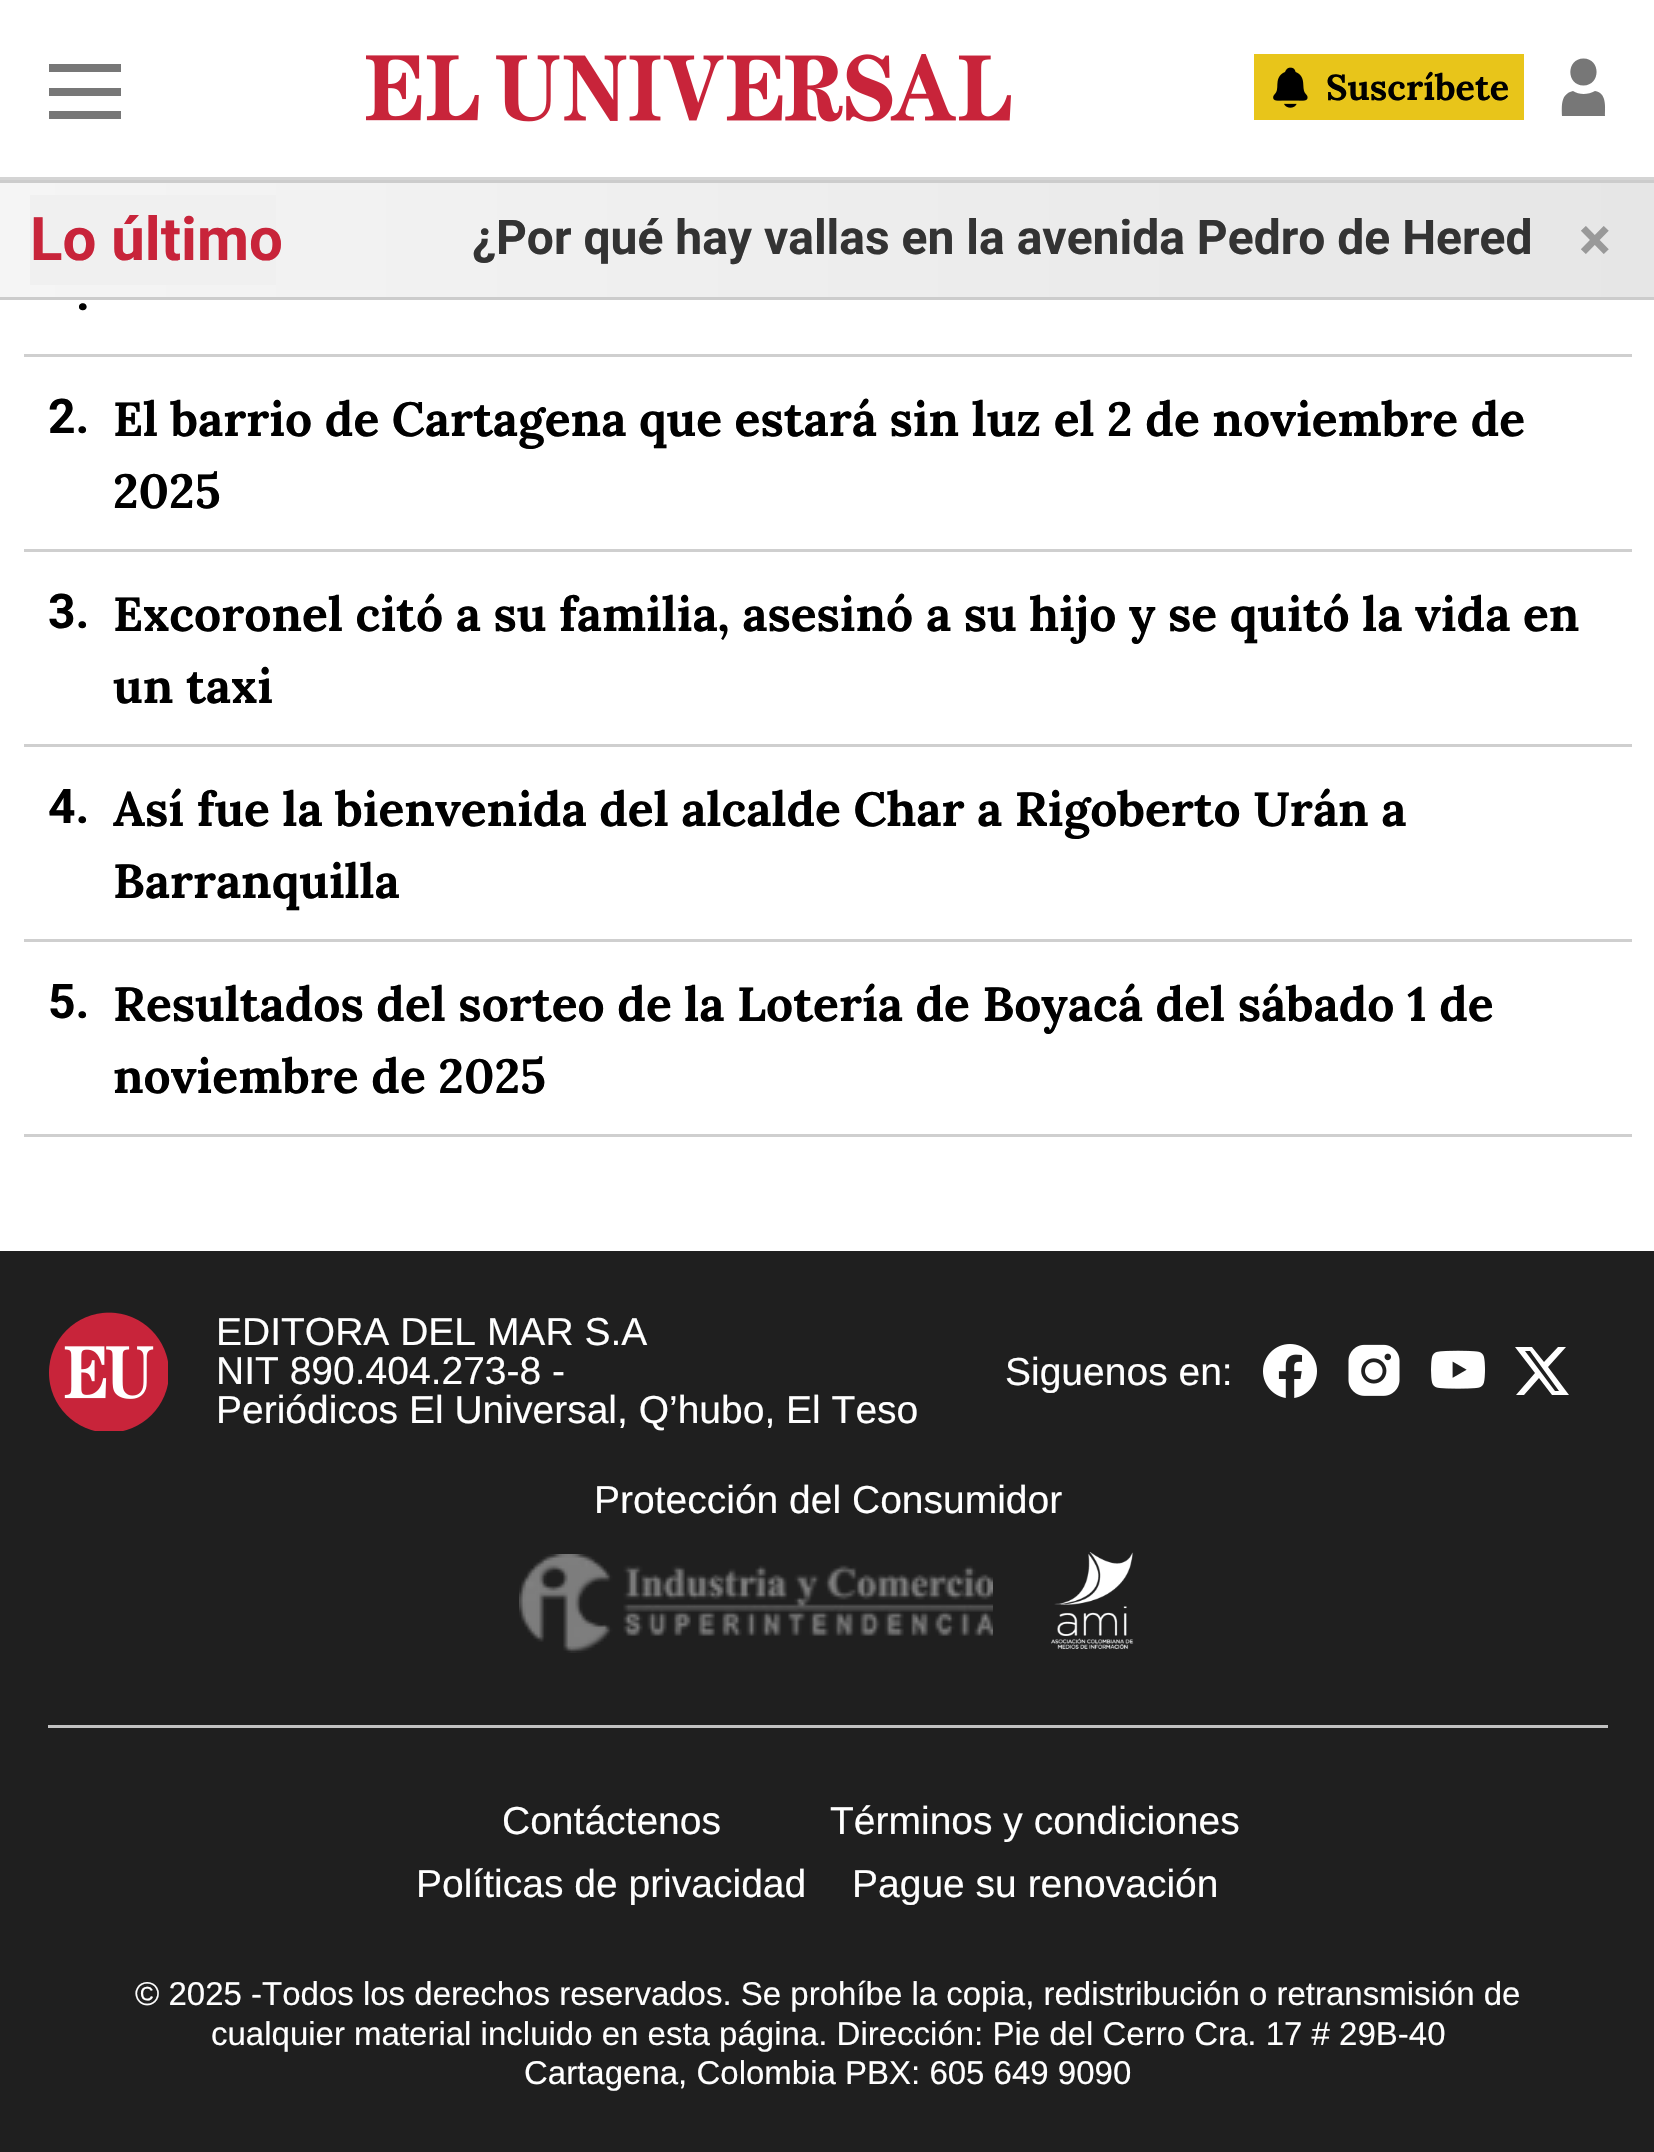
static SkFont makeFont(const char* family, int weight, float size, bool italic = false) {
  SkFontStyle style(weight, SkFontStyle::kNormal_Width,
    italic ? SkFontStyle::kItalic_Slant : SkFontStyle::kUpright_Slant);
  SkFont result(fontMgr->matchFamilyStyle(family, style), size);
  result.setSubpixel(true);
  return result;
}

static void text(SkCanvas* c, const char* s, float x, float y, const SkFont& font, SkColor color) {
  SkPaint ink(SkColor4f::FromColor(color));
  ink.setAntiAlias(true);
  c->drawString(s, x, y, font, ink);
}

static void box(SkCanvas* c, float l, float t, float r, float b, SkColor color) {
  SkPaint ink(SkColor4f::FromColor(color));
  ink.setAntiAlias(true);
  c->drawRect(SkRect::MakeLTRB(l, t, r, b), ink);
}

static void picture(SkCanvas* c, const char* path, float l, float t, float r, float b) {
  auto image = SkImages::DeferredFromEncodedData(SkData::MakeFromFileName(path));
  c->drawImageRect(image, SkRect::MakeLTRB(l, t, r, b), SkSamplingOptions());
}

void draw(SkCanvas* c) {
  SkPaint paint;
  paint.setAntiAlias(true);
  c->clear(0xffffffff);
  box(c, 0, 177, 1654, 180, 0xffd4d4d4);
  box(c, 49, 64, 121, 72, 0xff777777);
  box(c, 49, 88, 121, 96, 0xff777777);
  box(c, 49, 111, 121, 119, 0xff777777);
  picture(c, "img_01.png", 366, 54, 1011, 122);
  box(c, 1254, 54, 1524, 120, 0xffe8c51a);
  picture(c, "img_02.png", 1273, 67, 1308, 108);
  SkFont face1 = makeFont("Lora", 700, 36);
  text(c, "Suscríbete", 1326, 100, face1, 0xff000000);
  paint.setColor(0xff777777);
  c->drawPath(SkPathBuilder().moveTo(1595, 91).cubicTo(1588, 95, 1579, 95, 1573, 91).cubicTo(1560, 94, 1562, 107, 1562, 116).lineTo(1605, 116).cubicTo(1605, 107, 1607, 93, 1595, 91).close().moveTo(1583.5f, 85.5f).cubicTo(1601, 85.5f, 1601, 58.5f, 1583.5f, 58.5f).cubicTo(1566, 58.5f, 1566, 85.5f, 1583.5f, 85.5f).close().detach(), paint);
  {
    const SkColor colors[] = {0xfff5f5f5, 0xffe6e6e6};
    const float stops[] = {0, 1};
    const SkPoint ends[] = {{0, 240}, {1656, 240}};
    paint.setShader(SkGradientShader::MakeLinear(ends, colors, stops, 2, SkTileMode::kClamp));
    paint.setAlpha(255);
  }
  c->drawRect(SkRect::MakeLTRB(0, 183, 1654, 297), paint);
  box(c, 0, 180, 1654, 183, 0xffcccccc);
  box(c, 0, 297, 1654, 300, 0xffcccccc);
  {
    const SkColor colors[] = {0xfff0f0f0, 0x00f0f0f0};
    const float stops[] = {0.8f, 1};
    const SkPoint ends[] = {{-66, 240}, {402, 240}};
    paint.setShader(SkGradientShader::MakeLinear(ends, colors, stops, 2, SkTileMode::kClamp));
    paint.setAlpha(255);
  }
  c->drawRect(SkRect::MakeLTRB(30, 195, 276, 285), paint);
  SkFont face2 = makeFont("Roboto", 700, 60);
  text(c, "Lo último", 30, 260, face2, 0xffc8243a);
  SkFont face3 = makeFont("Roboto", 700, 48);
  text(c, "¿Por qué hay vallas en la avenida Pedro de Hered", 472, 254, face3, 0xff333333);
  text(c, "×", 1579, 260, face2, 0xff999999);
  box(c, 24, 354, 1632, 357, 0xffcfcfcf);
  text(c, ".", 76, 310, face3, 0xff000000);
  box(c, 24, 549, 1632, 552, 0xffcfcfcf);
  text(c, "2.", 48, 433, face3, 0xff000000);
  SkFont face4 = makeFont("Lora", 700, 48);
  text(c, "El barrio de Cartagena que estará sin luz el 2 de noviembre de", 113, 436, face4, 0xff000000);
  text(c, "2025", 113, 508, face4, 0xff000000);
  box(c, 24, 744, 1632, 747, 0xffcfcfcf);
  text(c, "3.", 48, 628, face3, 0xff000000);
  text(c, "Excoronel citó a su familia, asesinó a su hijo y se quitó la vida en", 113, 631, face4, 0xff000000);
  text(c, "un taxi", 113, 703, face4, 0xff000000);
  box(c, 24, 939, 1632, 942, 0xffcfcfcf);
  text(c, "4.", 48, 823, face3, 0xff000000);
  text(c, "Así fue la bienvenida del alcalde Char a Rigoberto Urán a", 113, 826, face4, 0xff000000);
  text(c, "Barranquilla", 113, 898, face4, 0xff000000);
  box(c, 24, 1134, 1632, 1137, 0xffcfcfcf);
  text(c, "5.", 48, 1018, face3, 0xff000000);
  text(c, "Resultados del sorteo de la Lotería de Boyacá del sábado 1 de", 113, 1021, face4, 0xff000000);
  text(c, "noviembre de 2025", 113, 1093, face4, 0xff000000);
  box(c, 0, 1251, 1654, 2152, 0xff1f1f1f);
  picture(c, "img_03.png", 49, 1312, 168, 1431);
  SkFont face5 = makeFont("Liberation Sans", 400, 39);
  text(c, "EDITORA DEL MAR S.A", 216, 1345, face5, 0xffffffff);
  text(c, "NIT 890.404.273-8 -", 216, 1384, face5, 0xffffffff);
  text(c, "Periódicos El Universal, Q’hubo, El Teso", 216, 1423, face5, 0xffffffff);
  text(c, "Siguenos en:", 1005, 1385, face5, 0xffffffff);
  picture(c, "img_04.png", 1263, 1344, 1317, 1398);
  picture(c, "img_05.png", 1348, 1344, 1400, 1396);
  picture(c, "img_06.png", 1431, 1350, 1485, 1389);
  paint.setShader(nullptr);
  paint.setColor(0xffffffff);
  c->drawPath(SkPathBuilder().moveTo(1558, 1347).lineTo(1566, 1347).lineTo(1548, 1367).lineTo(1569, 1395).lineTo(1552, 1395).lineTo(1539, 1378).lineTo(1524, 1395).lineTo(1516, 1395).lineTo(1535, 1373).lineTo(1515, 1347).lineTo(1532, 1347).lineTo(1544, 1362).close().moveTo(1555, 1391).lineTo(1559, 1391).lineTo(1530, 1351).lineTo(1525, 1351).close().detach(), paint);
  text(c, "Protección del Consumidor", 594, 1513, face5, 0xffffffff);
  picture(c, "img_07.png", 519, 1554, 993, 1653);
  picture(c, "img_08.png", 1051, 1552, 1134, 1649);
  box(c, 48, 1725, 1608, 1728, 0xffc1c1c1);
  text(c, "Contáctenos", 502, 1834, face5, 0xffffffff);
  text(c, "Términos y condiciones", 830, 1834, face5, 0xffffffff);
  text(c, "Políticas de privacidad", 416, 1897, face5, 0xffffffff);
  text(c, "Pague su renovación", 852, 1897, face5, 0xffffffff);
  SkFont face6 = makeFont("Liberation Sans", 400, 33);
  text(c, "© 2025 -Todos los derechos reservados. Se prohíbe la copia, redistribución o retransmisión de", 135, 2005, face6, 0xffffffff);
  text(c, "cualquier material incluido en esta página. Dirección: Pie del Cerro Cra. 17 # 29B-40", 211, 2045, face6, 0xffffffff);
  text(c, "Cartagena, Colombia PBX: 605 649 9090", 524, 2084, face6, 0xffffffff);
}
